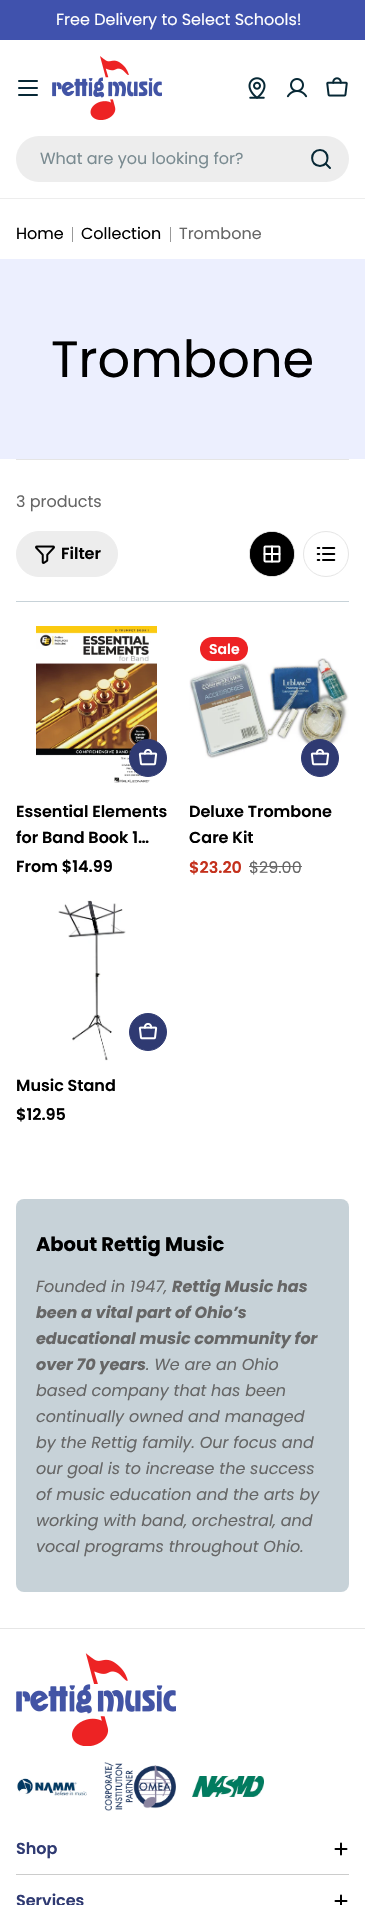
static SkFont makeFont(const char* family, int weight, float size, bool italic = false) {
  SkFontStyle style(weight, SkFontStyle::kNormal_Width,
    italic ? SkFontStyle::kItalic_Slant : SkFontStyle::kUpright_Slant);
  SkFont result(fontMgr->matchFamilyStyle(family, style), size);
  result.setSubpixel(true);
  return result;
}

static void text(SkCanvas* c, const char* s, float x, float y, const SkFont& font, SkColor color) {
  SkPaint ink(SkColor4f::FromColor(color));
  ink.setAntiAlias(true);
  c->drawString(s, x, y, font, ink);
}

static void box(SkCanvas* c, float l, float t, float r, float b, SkColor color) {
  SkPaint ink(SkColor4f::FromColor(color));
  ink.setAntiAlias(true);
  c->drawRect(SkRect::MakeLTRB(l, t, r, b), ink);
}

static void roundBox(SkCanvas* c, float l, float t, float r, float b, float radius, SkColor color) {
  SkPaint ink(SkColor4f::FromColor(color));
  ink.setAntiAlias(true);
  c->drawRoundRect(SkRect::MakeLTRB(l, t, r, b), radius, radius, ink);
}

static void picture(SkCanvas* c, const char* path, float l, float t, float r, float b) {
  auto image = SkImages::DeferredFromEncodedData(SkData::MakeFromFileName(path));
  c->drawImageRect(image, SkRect::MakeLTRB(l, t, r, b), SkSamplingOptions());
}

void draw(SkCanvas* c) {
  SkPaint paint;
  paint.setAntiAlias(true);
  c->clear(0xffffffff);
  box(c, 0, 0, 365, 40, 0xff4052ad);
  SkFont face1 = makeFont("Poppins", 400, 16);
  text(c, "Free Delivery to Select Schools!", 56, 25, face1, 0xffffffff);
  roundBox(c, 18, 87, 38, 89, 1, 0xff072835);
  roundBox(c, 18, 80, 38, 82, 1, 0xff072835);
  roundBox(c, 18, 94, 38, 96, 1, 0xff072835);
  picture(c, "img_01.png", 52, 56, 162, 120);
  picture(c, "img_02.png", 248, 77, 266, 99);
  picture(c, "img_03.png", 286, 78, 308, 98);
  picture(c, "img_04.png", 326, 77, 348, 97);
  roundBox(c, 16, 136, 349, 182, 23, 0xffededed);
  text(c, "What are you looking for?", 40, 164, face1, 0xff7a8b91);
  paint.setStyle(SkPaint::kStroke_Style);
  paint.setStrokeWidth(2);
  paint.setStrokeCap(SkPaint::kRound_Cap);
  paint.setStrokeJoin(SkPaint::kRound_Join);
  paint.setColor(0xff072835);
  c->drawPath(SkPathBuilder().moveTo(320, 166).cubicTo(330, 166, 330, 150, 320, 150).cubicTo(309.5f, 150, 309.5f, 166, 320, 166).close().moveTo(325.5f, 163.5f).lineTo(330, 168).detach(), paint);
  box(c, 0, 198, 365, 199, 0xffededed);
  text(c, "Home", 16, 239, face1, 0xff000000);
  box(c, 72, 227, 73, 242, 0xff999999);
  text(c, "Collection", 81, 239, face1, 0xff000000);
  box(c, 170, 227, 171, 242, 0xff999999);
  text(c, "Trombone", 179, 239, face1, 0xff666666);
  box(c, 0, 259, 365, 459, 0xffeceffe);
  SkFont face2 = makeFont("Poppins", 400, 51);
  text(c, "Trombone", 51, 377, face2, 0xff000000);
  box(c, 16, 459, 349, 460, 0xffe5e5e5);
  text(c, "3 products", 16, 507, face1, 0xff666666);
  paint.setStyle(SkPaint::kFill_Style);
  paint.setColor(0xffededed);
  c->drawRoundRect(SkRect::MakeLTRB(16.5f, 531.5f, 117.5f, 576.5f), 22.5f, 22.5f, paint);
  paint.setStyle(SkPaint::kStroke_Style);
  paint.setStrokeWidth(1);
  paint.setStrokeCap(SkPaint::kButt_Cap);
  paint.setStrokeJoin(SkPaint::kMiter_Join);
  c->drawRoundRect(SkRect::MakeLTRB(16.5f, 531.5f, 117.5f, 576.5f), 22.5f, 22.5f, paint);
  picture(c, "img_05.png", 35, 545, 55, 564);
  SkFont face3 = makeFont("Poppins", 600, 16);
  text(c, "Filter", 61, 559, face3, 0xff000000);
  paint.setStyle(SkPaint::kFill_Style);
  paint.setColor(0xff000000);
  c->drawCircle(272, 554, 22.5f, paint);
  paint.setStyle(SkPaint::kStroke_Style);
  paint.setColor(0xffe5e5e5);
  c->drawCircle(272, 554, 22.5f, paint);
  c->save();
  c->clipPath(SkPathBuilder().moveTo(272, 532).cubicTo(284, 532, 294, 542, 294, 554).cubicTo(294, 566, 284, 576, 272, 576).cubicTo(260, 576, 250, 566, 250, 554).cubicTo(250, 542, 260, 532, 272, 532).close().detach(), true);
  roundBox(c, 249, 531, 294, 577, 22.5f, 0xff000000);
  c->restore();
  picture(c, "img_06.png", 263, 545, 281, 563);
  c->drawCircle(326, 554, 22.5f, paint);
  picture(c, "img_07.png", 316, 547, 336, 561);
  box(c, 16, 601, 349, 602, 0xffc7d2d8);
  picture(c, "img_08.png", 36, 626, 157, 783);
  paint.setStyle(SkPaint::kFill_Style);
  paint.setColor(0xff2f3a72);
  c->drawCircle(148, 758, 18.5f, paint);
  paint.setStyle(SkPaint::kStroke_Style);
  c->drawCircle(148, 758, 18.5f, paint);
  picture(c, "img_09.png", 138, 748, 158, 766);
  text(c, "Essential Elements", 16, 817, face3, 0xff000000);
  text(c, "for Band Book 1…", 16, 843, face3, 0xff000000);
  text(c, "From $14.99", 16, 872, face3, 0xff000000);
  picture(c, "img_10.png", 189, 658, 349, 759);
  roundBox(c, 200, 637, 248, 661, 12, 0xffed2224);
  SkFont face4 = makeFont("Poppins", 600, 14);
  text(c, "Sale", 209, 654, face4, 0xffffffff);
  paint.setStyle(SkPaint::kFill_Style);
  c->drawCircle(320, 758, 18.5f, paint);
  paint.setStyle(SkPaint::kStroke_Style);
  c->drawCircle(320, 758, 18.5f, paint);
  picture(c, "img_09.png", 310, 748, 330, 766);
  text(c, "Deluxe Trombone", 189, 817, face3, 0xff000000);
  text(c, "Care Kit", 189, 843, face3, 0xff000000);
  text(c, "$23.20", 189, 873, face3, 0xffc4301c);
  text(c, "$29.00", 249, 873, face1, 0xff666666);
  box(c, 249, 866, 302, 867, 0xff666666);
  picture(c, "img_11.png", 58, 900, 126, 1061);
  paint.setStyle(SkPaint::kFill_Style);
  c->drawCircle(148, 1032, 18.5f, paint);
  paint.setStyle(SkPaint::kStroke_Style);
  c->drawCircle(148, 1032, 18.5f, paint);
  picture(c, "img_09.png", 138, 1022, 158, 1040);
  text(c, "Music Stand", 16, 1091, face3, 0xff000000);
  text(c, "$12.95", 16, 1120, face3, 0xff000000);
  roundBox(c, 16, 1199, 349, 1592, 8, 0xffc7d2d8);
  SkFont face5 = makeFont("Poppins", 700, 19.5f);
  text(c, "About Rettig Music", 36, 1251, face5, 0xff000000);
  SkFont face6 = makeFont("Poppins", 400, 16, true);
  text(c, "Founded in 1947,", 36, 1292, face6, 0xff666666);
  SkFont face7 = makeFont("Poppins", 700, 16, true);
  text(c, "Rettig Music has", 172, 1292, face7, 0xff666666);
  text(c, "been a vital part of Ohio’s", 36, 1318, face7, 0xff666666);
  text(c, "educational music community for", 36, 1344, face7, 0xff666666);
  text(c, "over 70 years", 36, 1370, face7, 0xff666666);
  text(c, ". We are an Ohio", 146, 1370, face6, 0xff666666);
  text(c, "based company that has been", 36, 1396, face6, 0xff666666);
  text(c, "continually owned and managed", 36, 1422, face6, 0xff666666);
  text(c, "by the Rettig family. Our focus and", 36, 1448, face6, 0xff666666);
  text(c, "our goal is to increase the success", 36, 1474, face6, 0xff666666);
  text(c, "of music education and the arts by", 36, 1500, face6, 0xff666666);
  text(c, "working with band, orchestral, and", 36, 1526, face6, 0xff666666);
  text(c, "vocal programs throughout Ohio.", 36, 1552, face6, 0xff666666);
  box(c, 0, 1628, 365, 1629, 0xffe6e6e6);
  picture(c, "img_12.png", 16, 1653, 176, 1746);
  picture(c, "img_13.png", 16, 1778, 87, 1796);
  picture(c, "img_14.png", 104, 1762, 176, 1811);
  picture(c, "img_15.png", 192, 1776, 264, 1797);
  box(c, 16, 1874, 349, 1875, 0xffcccccc);
  text(c, "Shop", 16, 1854, face3, 0xff2f3a72);
  paint.setStrokeWidth(2);
  paint.setStrokeCap(SkPaint::kRound_Cap);
  paint.setStrokeJoin(SkPaint::kRound_Join);
  paint.setColor(0xff000000);
  c->drawPath(SkPathBuilder().moveTo(335.5f, 1849).lineTo(346.5f, 1849).moveTo(341, 1843.5f).lineTo(341, 1854.5f).detach(), paint);
  text(c, "Services", 16, 1906, face3, 0xff2f3a72);
  c->drawPath(SkPathBuilder().moveTo(335.5f, 1901).lineTo(346.5f, 1901).moveTo(341, 1895.5f).lineTo(341, 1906.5f).detach(), paint);
}
